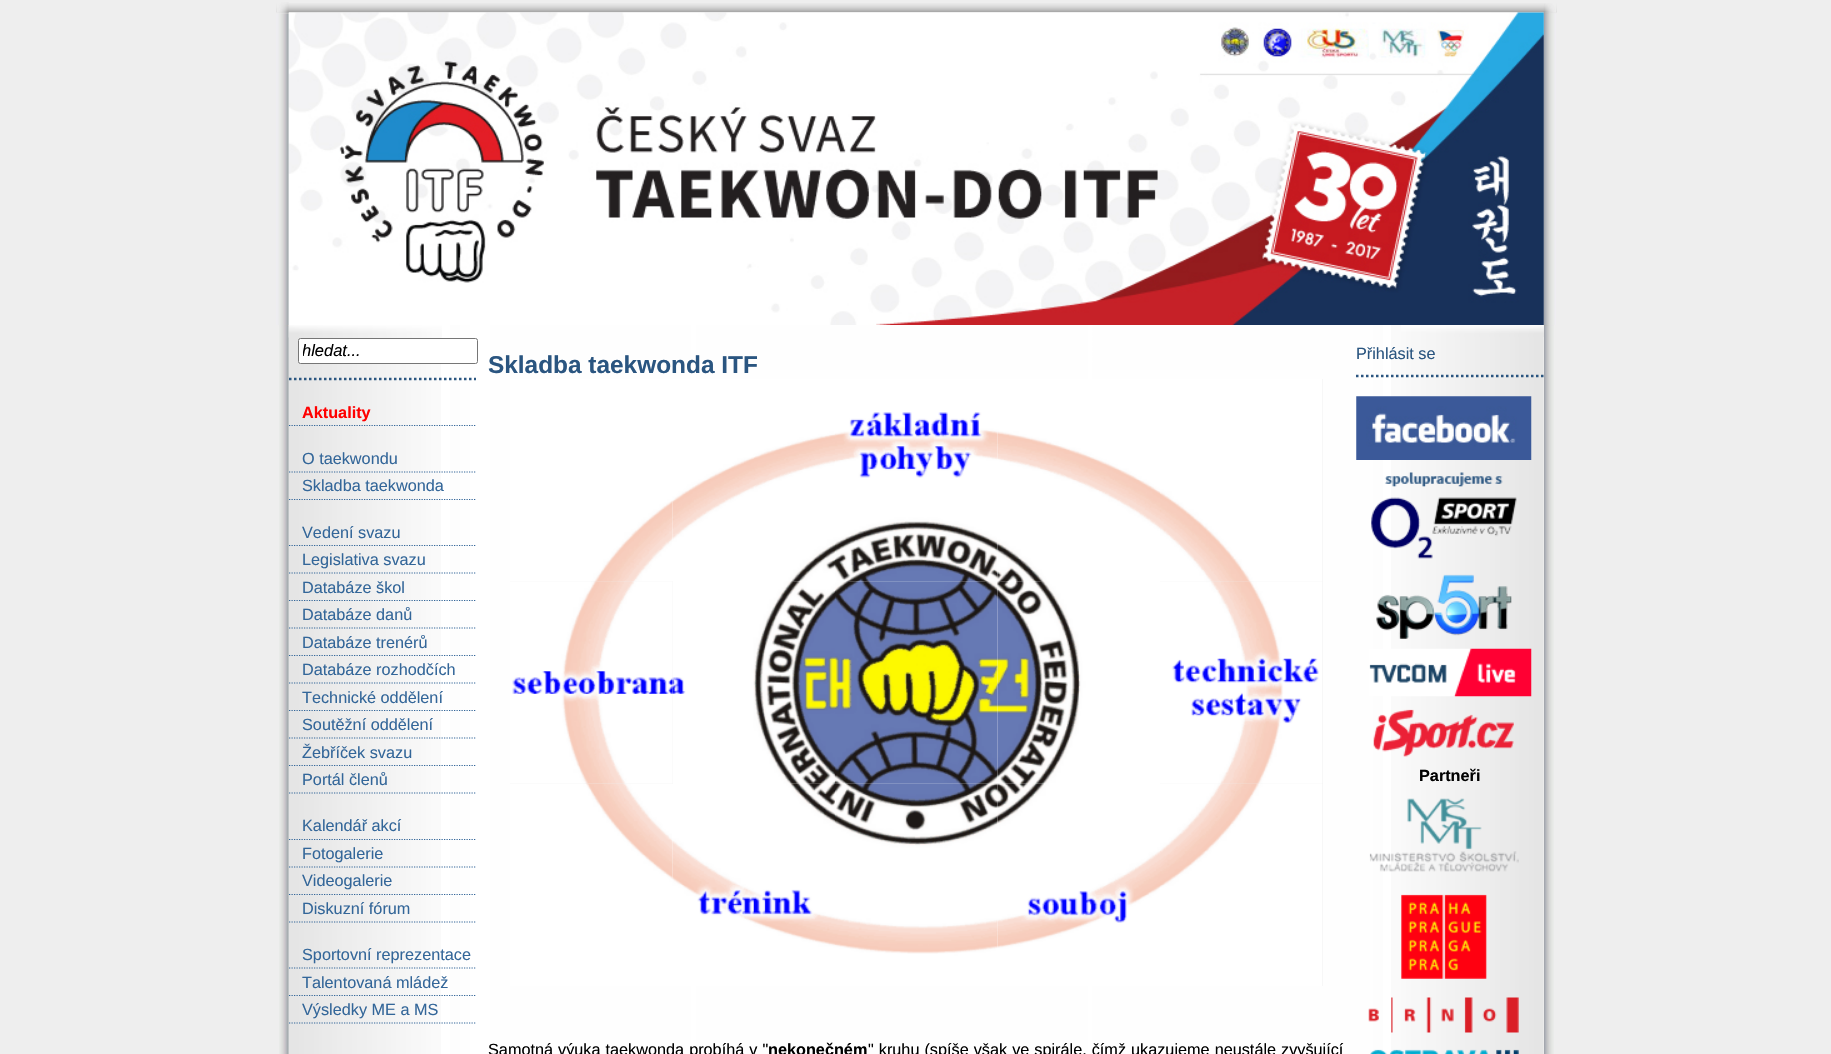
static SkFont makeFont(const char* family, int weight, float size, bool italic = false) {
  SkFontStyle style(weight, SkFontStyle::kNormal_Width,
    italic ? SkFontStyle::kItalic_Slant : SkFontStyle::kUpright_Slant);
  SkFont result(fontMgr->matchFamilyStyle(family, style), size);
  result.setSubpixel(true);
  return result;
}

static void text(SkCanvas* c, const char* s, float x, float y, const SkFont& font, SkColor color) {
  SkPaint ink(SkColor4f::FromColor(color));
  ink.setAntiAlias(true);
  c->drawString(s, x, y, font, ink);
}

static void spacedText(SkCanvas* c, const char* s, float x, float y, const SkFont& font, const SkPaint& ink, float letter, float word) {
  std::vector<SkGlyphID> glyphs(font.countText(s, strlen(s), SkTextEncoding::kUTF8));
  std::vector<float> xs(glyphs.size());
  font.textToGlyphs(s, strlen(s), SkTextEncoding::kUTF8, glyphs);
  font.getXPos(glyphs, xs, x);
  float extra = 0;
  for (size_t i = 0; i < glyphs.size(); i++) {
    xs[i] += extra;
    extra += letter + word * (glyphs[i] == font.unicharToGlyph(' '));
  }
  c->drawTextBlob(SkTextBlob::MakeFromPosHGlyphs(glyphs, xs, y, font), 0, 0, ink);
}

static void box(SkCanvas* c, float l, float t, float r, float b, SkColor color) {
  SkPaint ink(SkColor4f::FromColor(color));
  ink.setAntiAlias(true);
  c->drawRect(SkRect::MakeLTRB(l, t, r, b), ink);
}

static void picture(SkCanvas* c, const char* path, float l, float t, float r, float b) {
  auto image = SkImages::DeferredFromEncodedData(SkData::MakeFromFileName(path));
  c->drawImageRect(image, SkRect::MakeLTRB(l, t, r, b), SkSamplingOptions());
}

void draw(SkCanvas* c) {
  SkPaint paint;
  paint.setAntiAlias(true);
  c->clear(0xffeeeeee);
  picture(c, "img_01.png", 276, 3, 1557, 13);
  picture(c, "img_02.png", 276, 2, 289, 13);
  picture(c, "img_03.png", 1543, 3, 1557, 13);
  picture(c, "img_04.png", 276, 12, 1556, 325);
  box(c, 276, 13, 289, 14, 0xffeeeeee);
  picture(c, "img_05.png", 276, 12, 289, 14);
  picture(c, "img_06.png", 288, 12, 1544, 325);
  picture(c, "img_07.png", 1543, 12, 1556, 14);
  picture(c, "img_08.png", 279, 325, 1554, 1054);
  box(c, 276, 325, 289, 326, 0xffeeeeee);
  picture(c, "img_09.png", 279, 325, 289, 327);
  picture(c, "img_10.png", 1544, 325, 1554, 326);
  box(c, 441, 325, 450, 1054, 0xffffffff);
  picture(c, "img_11.png", 288, 325, 441, 1054);
  picture(c, "img_12.png", 288, 325, 442, 338);
  paint.setStyle(SkPaint::kStroke_Style);
  paint.setStrokeWidth(2.5f);
  paint.setColor(0xff2a5580);
  paint.setPathEffect(SkDashPathEffect::Make({{2.5f, 2.5f}}, 0));
  c->drawPath(SkPathBuilder().moveTo(289, 379).lineTo(476, 379).detach(), paint);
  paint.setPathEffect(nullptr);
  paint.setStyle(SkPaint::kFill_Style);
  paint.setColor(0xffffffff);
  c->drawRoundRect(SkRect::MakeLTRB(298.5f, 338.5f, 477.5f, 363.5f), 2, 2, paint);
  paint.setStyle(SkPaint::kStroke_Style);
  paint.setStrokeWidth(1);
  paint.setColor(0xff767676);
  c->drawRoundRect(SkRect::MakeLTRB(298.5f, 338.5f, 477.5f, 363.5f), 2, 2, paint);
  c->save();
  c->clipRect(SkRect::MakeLTRB(303, 341, 473, 360));
  SkFont face1 = makeFont("Liberation Sans", 400, 16.5f, true);
  text(c, "hledat...", 302, 356, face1, 0xff000000);
  c->restore();
  paint.setStrokeWidth(1.2f);
  paint.setColor(0xff336699);
  paint.setPathEffect(SkDashPathEffect::Make({{1.25f, 1.25f}}, 0));
  c->drawPath(SkPathBuilder().moveTo(289, 425.5f).lineTo(476, 425.5f).detach(), paint);
  paint.setPathEffect(nullptr);
  SkFont face2 = makeFont("Liberation Sans", 700, 16.25f);
  text(c, "Aktuality", 302, 418, face2, 0xffff0000);
  paint.setPathEffect(SkDashPathEffect::Make({{1.25f, 1.25f}}, 0));
  c->drawPath(SkPathBuilder().moveTo(289, 472).lineTo(476, 472).detach(), paint);
  paint.setPathEffect(nullptr);
  SkFont face3 = makeFont("Liberation Sans", 400, 16.25f);
  text(c, "O taekwondu", 302, 464, face3, 0xff336699);
  paint.setPathEffect(SkDashPathEffect::Make({{1.25f, 1.25f}}, 0));
  c->drawPath(SkPathBuilder().moveTo(289, 499.5f).lineTo(476, 499.5f).detach(), paint);
  paint.setPathEffect(nullptr);
  text(c, "Skladba taekwonda", 302, 491, face3, 0xff336699);
  paint.setPathEffect(SkDashPathEffect::Make({{1.25f, 1.25f}}, 0));
  c->drawPath(SkPathBuilder().moveTo(289, 545.5f).lineTo(476, 545.5f).detach(), paint);
  paint.setPathEffect(nullptr);
  text(c, "Vedení svazu", 302, 538, face3, 0xff336699);
  paint.setPathEffect(SkDashPathEffect::Make({{1.25f, 1.25f}}, 0));
  c->drawPath(SkPathBuilder().moveTo(289, 573).lineTo(476, 573).detach(), paint);
  paint.setPathEffect(nullptr);
  text(c, "Legislativa svazu", 302, 565, face3, 0xff336699);
  paint.setPathEffect(SkDashPathEffect::Make({{1.25f, 1.25f}}, 0));
  c->drawPath(SkPathBuilder().moveTo(289, 600.5f).lineTo(476, 600.5f).detach(), paint);
  paint.setPathEffect(nullptr);
  text(c, "Databáze škol", 302, 593, face3, 0xff336699);
  paint.setPathEffect(SkDashPathEffect::Make({{1.25f, 1.25f}}, 0));
  c->drawPath(SkPathBuilder().moveTo(289, 628).lineTo(476, 628).detach(), paint);
  paint.setPathEffect(nullptr);
  text(c, "Databáze danů", 302, 620, face3, 0xff336699);
  paint.setPathEffect(SkDashPathEffect::Make({{1.25f, 1.25f}}, 0));
  c->drawPath(SkPathBuilder().moveTo(289, 655.5f).lineTo(476, 655.5f).detach(), paint);
  paint.setPathEffect(nullptr);
  text(c, "Databáze trenérů", 302, 648, face3, 0xff336699);
  paint.setPathEffect(SkDashPathEffect::Make({{1.25f, 1.25f}}, 0));
  c->drawPath(SkPathBuilder().moveTo(289, 683).lineTo(476, 683).detach(), paint);
  paint.setPathEffect(nullptr);
  text(c, "Databáze rozhodčích", 302, 675, face3, 0xff336699);
  paint.setPathEffect(SkDashPathEffect::Make({{1.25f, 1.25f}}, 0));
  c->drawPath(SkPathBuilder().moveTo(289, 710.5f).lineTo(476, 710.5f).detach(), paint);
  paint.setPathEffect(nullptr);
  text(c, "Technické oddělení", 302, 703, face3, 0xff336699);
  paint.setPathEffect(SkDashPathEffect::Make({{1.25f, 1.25f}}, 0));
  c->drawPath(SkPathBuilder().moveTo(289, 738).lineTo(476, 738).detach(), paint);
  paint.setPathEffect(nullptr);
  text(c, "Soutěžní oddělení", 302, 730, face3, 0xff336699);
  paint.setPathEffect(SkDashPathEffect::Make({{1.25f, 1.25f}}, 0));
  c->drawPath(SkPathBuilder().moveTo(289, 765.5f).lineTo(476, 765.5f).detach(), paint);
  paint.setPathEffect(nullptr);
  text(c, "Žebříček svazu", 302, 758, face3, 0xff336699);
  paint.setPathEffect(SkDashPathEffect::Make({{1.25f, 1.25f}}, 0));
  c->drawPath(SkPathBuilder().moveTo(289, 793).lineTo(476, 793).detach(), paint);
  paint.setPathEffect(nullptr);
  text(c, "Portál členů", 302, 785, face3, 0xff336699);
  paint.setPathEffect(SkDashPathEffect::Make({{1.25f, 1.25f}}, 0));
  c->drawPath(SkPathBuilder().moveTo(289, 839.5f).lineTo(476, 839.5f).detach(), paint);
  paint.setPathEffect(nullptr);
  text(c, "Kalendář akcí", 302, 831, face3, 0xff336699);
  paint.setPathEffect(SkDashPathEffect::Make({{1.25f, 1.25f}}, 0));
  c->drawPath(SkPathBuilder().moveTo(289, 867).lineTo(476, 867).detach(), paint);
  paint.setPathEffect(nullptr);
  text(c, "Fotogalerie", 302, 859, face3, 0xff336699);
  paint.setPathEffect(SkDashPathEffect::Make({{1.25f, 1.25f}}, 0));
  c->drawPath(SkPathBuilder().moveTo(289, 894.5f).lineTo(476, 894.5f).detach(), paint);
  paint.setPathEffect(nullptr);
  text(c, "Videogalerie", 302, 886, face3, 0xff336699);
  paint.setPathEffect(SkDashPathEffect::Make({{1.25f, 1.25f}}, 0));
  c->drawPath(SkPathBuilder().moveTo(289, 922).lineTo(476, 922).detach(), paint);
  paint.setPathEffect(nullptr);
  text(c, "Diskuzní fórum", 302, 914, face3, 0xff336699);
  paint.setPathEffect(SkDashPathEffect::Make({{1.25f, 1.25f}}, 0));
  c->drawPath(SkPathBuilder().moveTo(289, 968).lineTo(476, 968).detach(), paint);
  paint.setPathEffect(nullptr);
  text(c, "Sportovní reprezentace", 302, 960, face3, 0xff336699);
  paint.setPathEffect(SkDashPathEffect::Make({{1.25f, 1.25f}}, 0));
  c->drawPath(SkPathBuilder().moveTo(289, 995.5f).lineTo(476, 995.5f).detach(), paint);
  paint.setPathEffect(nullptr);
  text(c, "Talentovaná mládež", 302, 988, face3, 0xff336699);
  paint.setPathEffect(SkDashPathEffect::Make({{1.25f, 1.25f}}, 0));
  c->drawPath(SkPathBuilder().moveTo(289, 1023).lineTo(476, 1023).detach(), paint);
  paint.setPathEffect(nullptr);
  text(c, "Výsledky ME a MS", 302, 1015, face3, 0xff336699);
  SkFont face4 = makeFont("Liberation Sans", 700, 24.4f);
  text(c, "Skladba taekwonda ITF", 488, 373, face4, 0xff2a5580);
  box(c, 510, 581, 673, 784, 0xffeeeeee);
  picture(c, "img_13.png", 510, 379, 673, 582);
  picture(c, "img_14.png", 672, 379, 835, 582);
  picture(c, "img_15.png", 835, 379, 998, 582);
  picture(c, "img_16.png", 997, 379, 1160, 582);
  box(c, 1322, 379, 1323, 581, 0xffeeeeee);
  box(c, 1160, 581, 1323, 784, 0xffeeeeee);
  picture(c, "img_17.png", 1160, 379, 1323, 582);
  picture(c, "img_18.png", 510, 581, 673, 784);
  picture(c, "img_19.png", 672, 581, 835, 784);
  picture(c, "img_20.png", 835, 581, 998, 784);
  picture(c, "img_21.png", 997, 581, 1160, 784);
  picture(c, "img_22.png", 1160, 581, 1323, 784);
  picture(c, "img_23.png", 510, 784, 673, 986);
  picture(c, "img_24.png", 672, 783, 835, 986);
  picture(c, "img_25.png", 835, 783, 998, 986);
  picture(c, "img_26.png", 997, 783, 1160, 986);
  box(c, 1322, 784, 1323, 986, 0xffeeeeee);
  picture(c, "img_27.png", 1160, 783, 1323, 986);
  paint.setStyle(SkPaint::kFill_Style);
  paint.setColor(0xff000000);
  spacedText(c, "Samotná výuka taekwonda probíhá v \"", 488, 1055, face3, paint, 0, 0.5f);
  text(c, "nekonečném", 768, 1055, face2, 0xff000000);
  spacedText(c, "\" kruhu (spíše však ve spirále, čímž ukazujeme neustále zvyšující", 868, 1055, face3, paint, 0, 0.5f);
  box(c, 1383, 325, 1544, 1054, 0xffffffff);
  picture(c, "img_28.png", 1391, 325, 1544, 1054);
  picture(c, "img_29.png", 1401, 325, 1544, 337);
  paint.setStyle(SkPaint::kStroke_Style);
  paint.setStrokeWidth(2.5f);
  paint.setColor(0xff2a5580);
  paint.setPathEffect(SkDashPathEffect::Make({{2.5f, 2.5f}}, 0));
  c->drawPath(SkPathBuilder().moveTo(1356, 376).lineTo(1544, 376).detach(), paint);
  paint.setPathEffect(nullptr);
  text(c, "Přihlásit se", 1356, 359, face3, 0xff2a5580);
  picture(c, "img_30.png", 1356, 396, 1532, 460);
  picture(c, "img_31.png", 1371, 472, 1517, 559);
  picture(c, "img_32.png", 1376, 574, 1512, 639);
  picture(c, "img_33.png", 1369, 648, 1532, 697);
  picture(c, "img_34.png", 1373, 709, 1514, 757);
  text(c, "Partneři", 1419, 781, face2, 0xff000000);
  picture(c, "img_35.png", 1369, 798, 1519, 872);
  picture(c, "img_36.png", 1401, 894, 1487, 979);
  picture(c, "img_37.png", 1368, 997, 1519, 1033);
  picture(c, "img_38.png", 1370, 1049, 1519, 1054);
}
